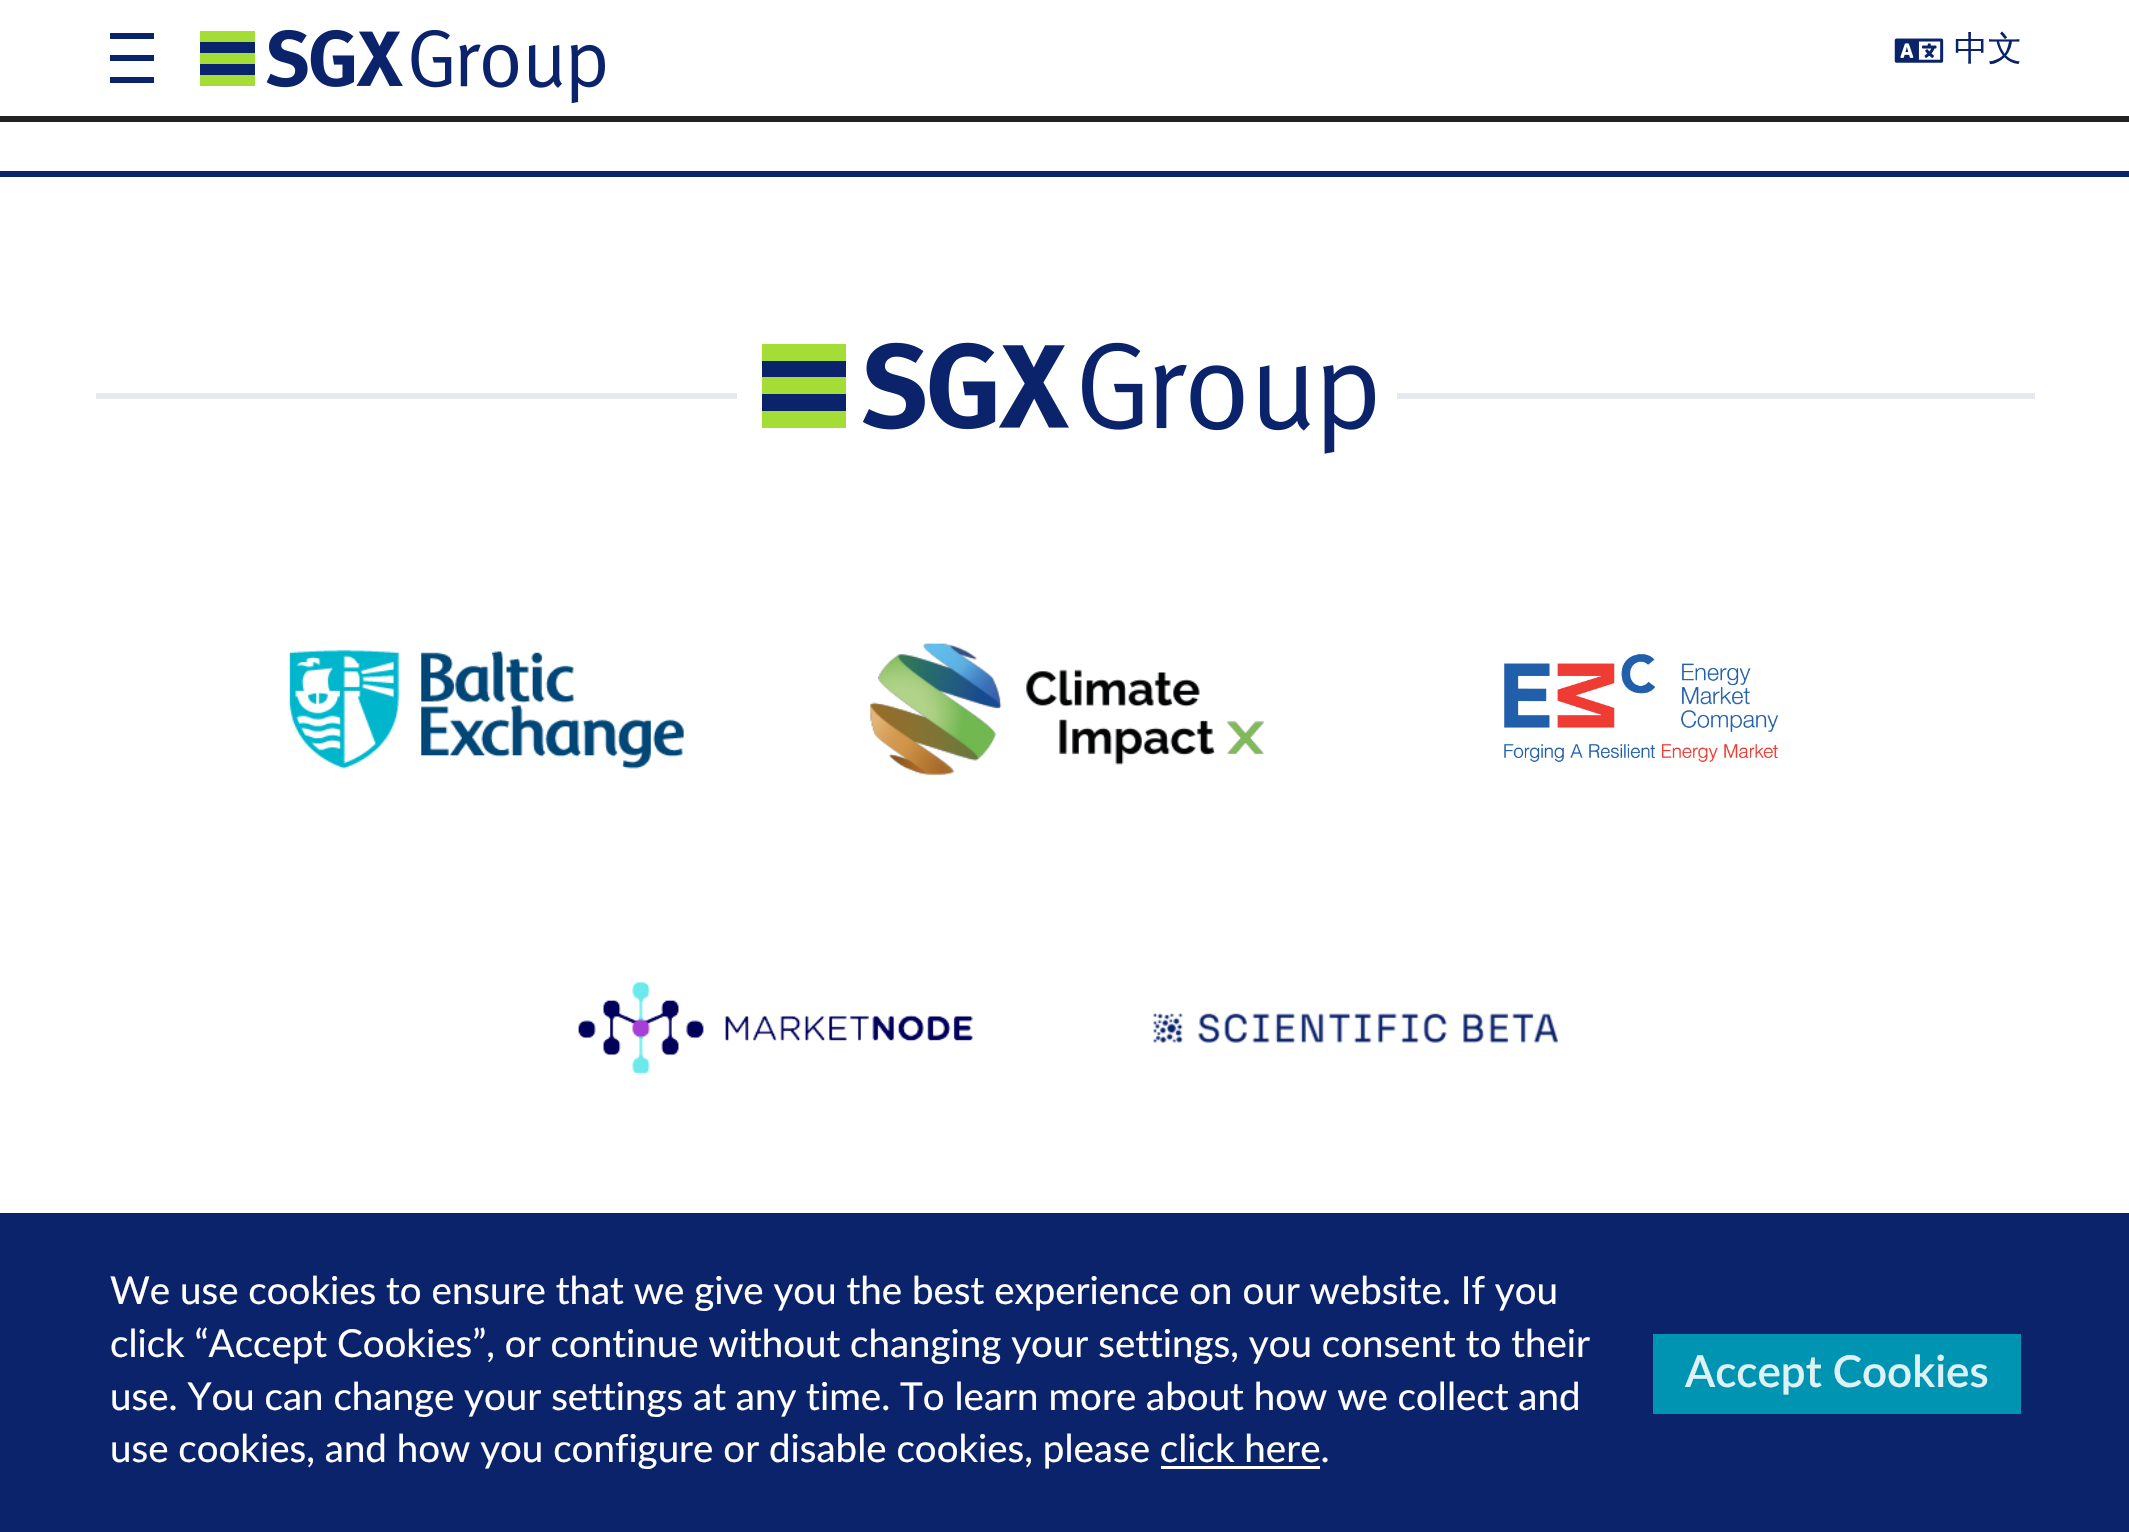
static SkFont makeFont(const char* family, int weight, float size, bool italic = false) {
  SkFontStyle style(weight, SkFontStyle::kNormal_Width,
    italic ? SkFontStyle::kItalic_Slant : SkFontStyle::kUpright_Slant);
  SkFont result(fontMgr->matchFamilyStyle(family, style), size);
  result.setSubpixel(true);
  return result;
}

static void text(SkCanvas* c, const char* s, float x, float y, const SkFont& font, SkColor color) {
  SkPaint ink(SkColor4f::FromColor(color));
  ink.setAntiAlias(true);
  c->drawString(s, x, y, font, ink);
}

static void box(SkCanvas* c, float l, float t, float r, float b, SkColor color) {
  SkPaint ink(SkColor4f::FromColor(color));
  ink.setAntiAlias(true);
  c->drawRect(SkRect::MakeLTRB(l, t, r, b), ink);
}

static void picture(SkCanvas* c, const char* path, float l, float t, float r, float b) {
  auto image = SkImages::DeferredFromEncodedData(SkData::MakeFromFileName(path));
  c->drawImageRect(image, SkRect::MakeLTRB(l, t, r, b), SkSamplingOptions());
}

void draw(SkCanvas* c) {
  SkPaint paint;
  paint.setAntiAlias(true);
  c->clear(0xffffffff);
  box(c, 0, 116, 2129, 122, 0xff222222);
  box(c, 110, 55, 154, 61, 0xff0b236b);
  box(c, 110, 33, 154, 39, 0xff0b236b);
  box(c, 110, 77, 154, 83, 0xff0b236b);
  picture(c, "img_01.png", 200, 29, 605, 104);
  picture(c, "img_02.png", 1894, 38, 1944, 63);
  SkFont face1 = makeFont("WenQuanYi Zen Hei", 500, 34);
  text(c, "中文", 1954, 60, face1, 0xff0b236b);
  box(c, 0, 171, 2129, 177, 0xff0b236b);
  box(c, 96, 393, 737, 399, 0xffe7e9f0);
  picture(c, "img_03.png", 762, 342, 1375, 454);
  box(c, 1397, 393, 2035, 399, 0xffe7e9f0);
  picture(c, "img_04.png", 289, 650, 684, 769);
  picture(c, "img_05.png", 870, 643, 1264, 776);
  picture(c, "img_06.png", 1504, 654, 1779, 762);
  picture(c, "img_07.png", 578, 982, 973, 1075);
  picture(c, "img_08.png", 1153, 1013, 1559, 1043);
  box(c, 0, 1213, 2129, 1532, 0xff0b236b);
  SkFont face2 = makeFont("Lato", 400, 38.5f);
  text(c, "We use cookies to ensure that we give you the best experience on our website. If you", 110, 1304, face2, 0xffffffff);
  text(c, "click “Accept Cookies”, or continue without changing your settings, you consent to their", 110, 1357, face2, 0xffffffff);
  text(c, "use. You can change your settings at any time. To learn more about how we collect and", 110, 1410, face2, 0xffffffff);
  text(c, "use cookies, and how you configure or disable cookies, please click here.", 110, 1462, face2, 0xffffffff);
  box(c, 1161, 1466, 1320, 1469, 0xffffffff);
  box(c, 1653, 1334, 2021, 1414, 0xff0094b3);
  SkFont face3 = makeFont("Lato", 600, 44);
  text(c, "Accept Cookies", 1685, 1387, face3, 0xffdef1f5);
}
